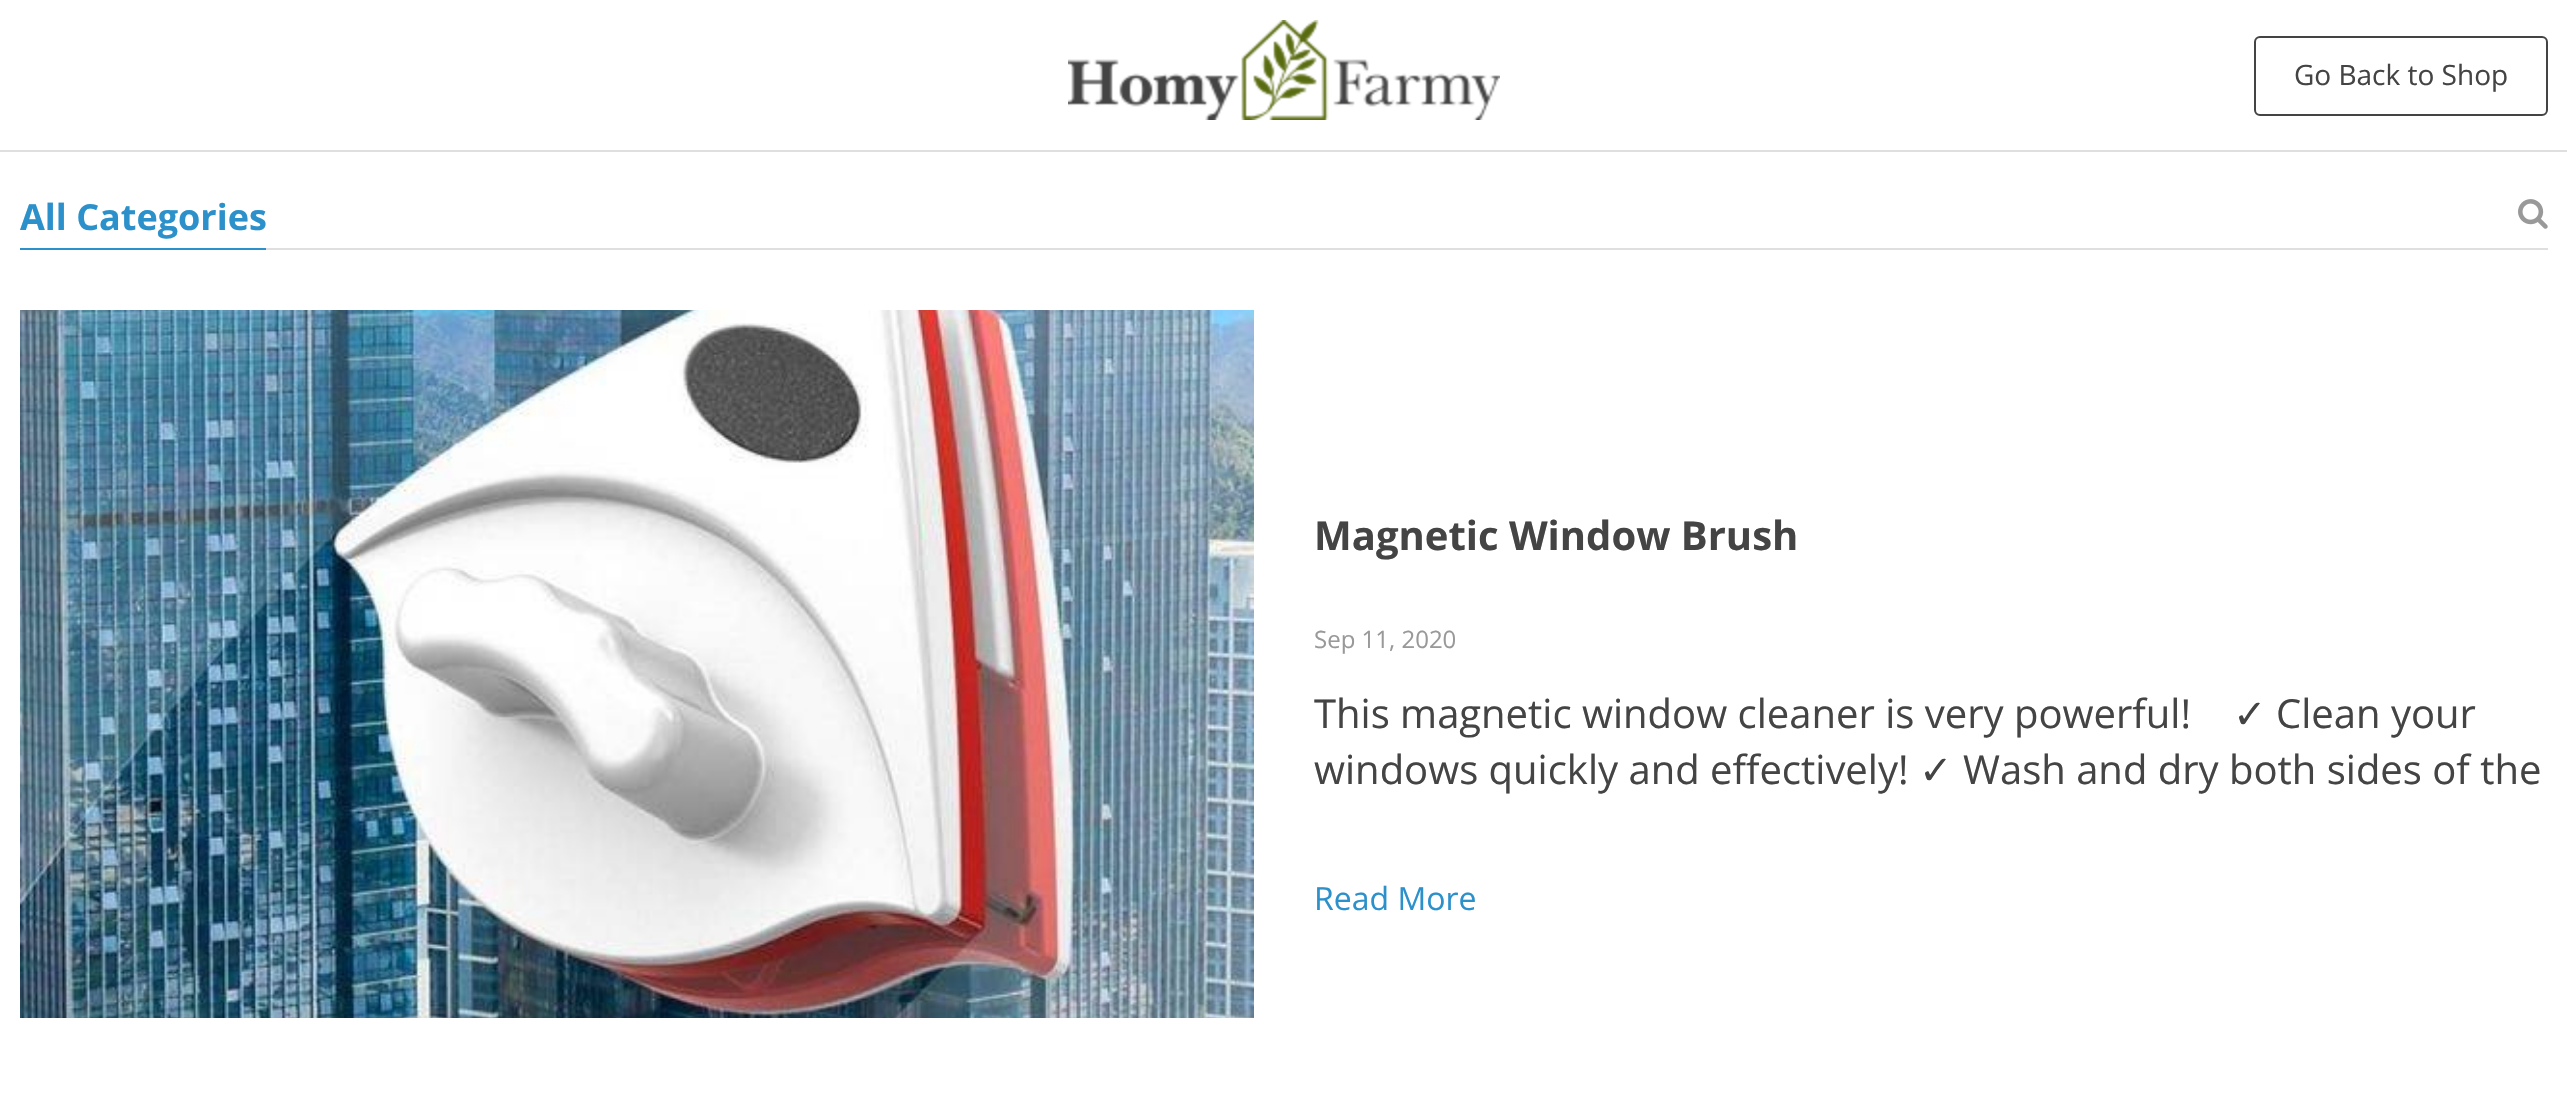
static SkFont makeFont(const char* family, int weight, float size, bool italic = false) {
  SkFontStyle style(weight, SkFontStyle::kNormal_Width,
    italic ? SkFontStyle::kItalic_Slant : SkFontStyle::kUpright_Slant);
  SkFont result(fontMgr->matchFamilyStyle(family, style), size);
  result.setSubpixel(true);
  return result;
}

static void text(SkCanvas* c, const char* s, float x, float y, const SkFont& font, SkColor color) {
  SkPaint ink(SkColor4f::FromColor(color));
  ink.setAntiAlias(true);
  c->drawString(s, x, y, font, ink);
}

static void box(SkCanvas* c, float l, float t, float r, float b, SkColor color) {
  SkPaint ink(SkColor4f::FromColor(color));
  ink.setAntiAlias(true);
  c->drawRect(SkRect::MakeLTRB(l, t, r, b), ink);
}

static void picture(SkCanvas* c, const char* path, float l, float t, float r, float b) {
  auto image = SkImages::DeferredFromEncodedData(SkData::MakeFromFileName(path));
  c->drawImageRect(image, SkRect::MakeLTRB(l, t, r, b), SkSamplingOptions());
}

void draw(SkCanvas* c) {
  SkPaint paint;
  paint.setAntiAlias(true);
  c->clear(0xffffffff);
  box(c, 0, 150, 2567, 152, 0xffdfdfdf);
  picture(c, "img_01.png", 1068, 20, 1500, 120);
  paint.setStyle(SkPaint::kStroke_Style);
  paint.setStrokeWidth(2);
  paint.setColor(0xff444444);
  c->drawRoundRect(SkRect::MakeLTRB(2255, 37, 2547, 115), 5, 5, paint);
  SkFont face1 = makeFont("Open Sans", 400, 28);
  text(c, "Go Back to Shop", 2294, 85, face1, 0xff444444);
  box(c, 266, 248, 2548, 250, 0xffdfdfdf);
  SkFont face2 = makeFont("Open Sans", 700, 36);
  text(c, "All Categories", 20, 230, face2, 0xff2c91cb);
  box(c, 20, 248, 266, 250, 0xff2c91cb);
  picture(c, "img_02.png", 2518, 199, 2548, 229);
  picture(c, "img_03.png", 20, 310, 1254, 1018);
  SkFont face3 = makeFont("Open Sans", 700, 40);
  text(c, "Magnetic Window Brush", 1314, 550, face3, 0xff444444);
  SkFont face4 = makeFont("Open Sans", 400, 24);
  text(c, "Sep 11, 2020", 1314, 648, face4, 0xff999999);
  SkFont face5 = makeFont("Open Sans", 400, 40);
  text(c, "This magnetic window cleaner is very powerful!", 1314, 728, face5, 0xff444444);
  SkFont face6 = makeFont("DejaVu Sans", 400, 40);
  text(c, "✓", 2233, 728, face6, 0xff444444);
  text(c, "Clean your", 2276, 728, face5, 0xff444444);
  text(c, "windows quickly and effectively!", 1314, 784, face5, 0xff444444);
  text(c, "✓", 1919, 784, face6, 0xff444444);
  text(c, "Wash and dry both sides of the", 1963, 784, face5, 0xff444444);
  SkFont face7 = makeFont("Open Sans", 400, 32);
  text(c, "Read More", 1314, 910, face7, 0xff2c91cb);
}
